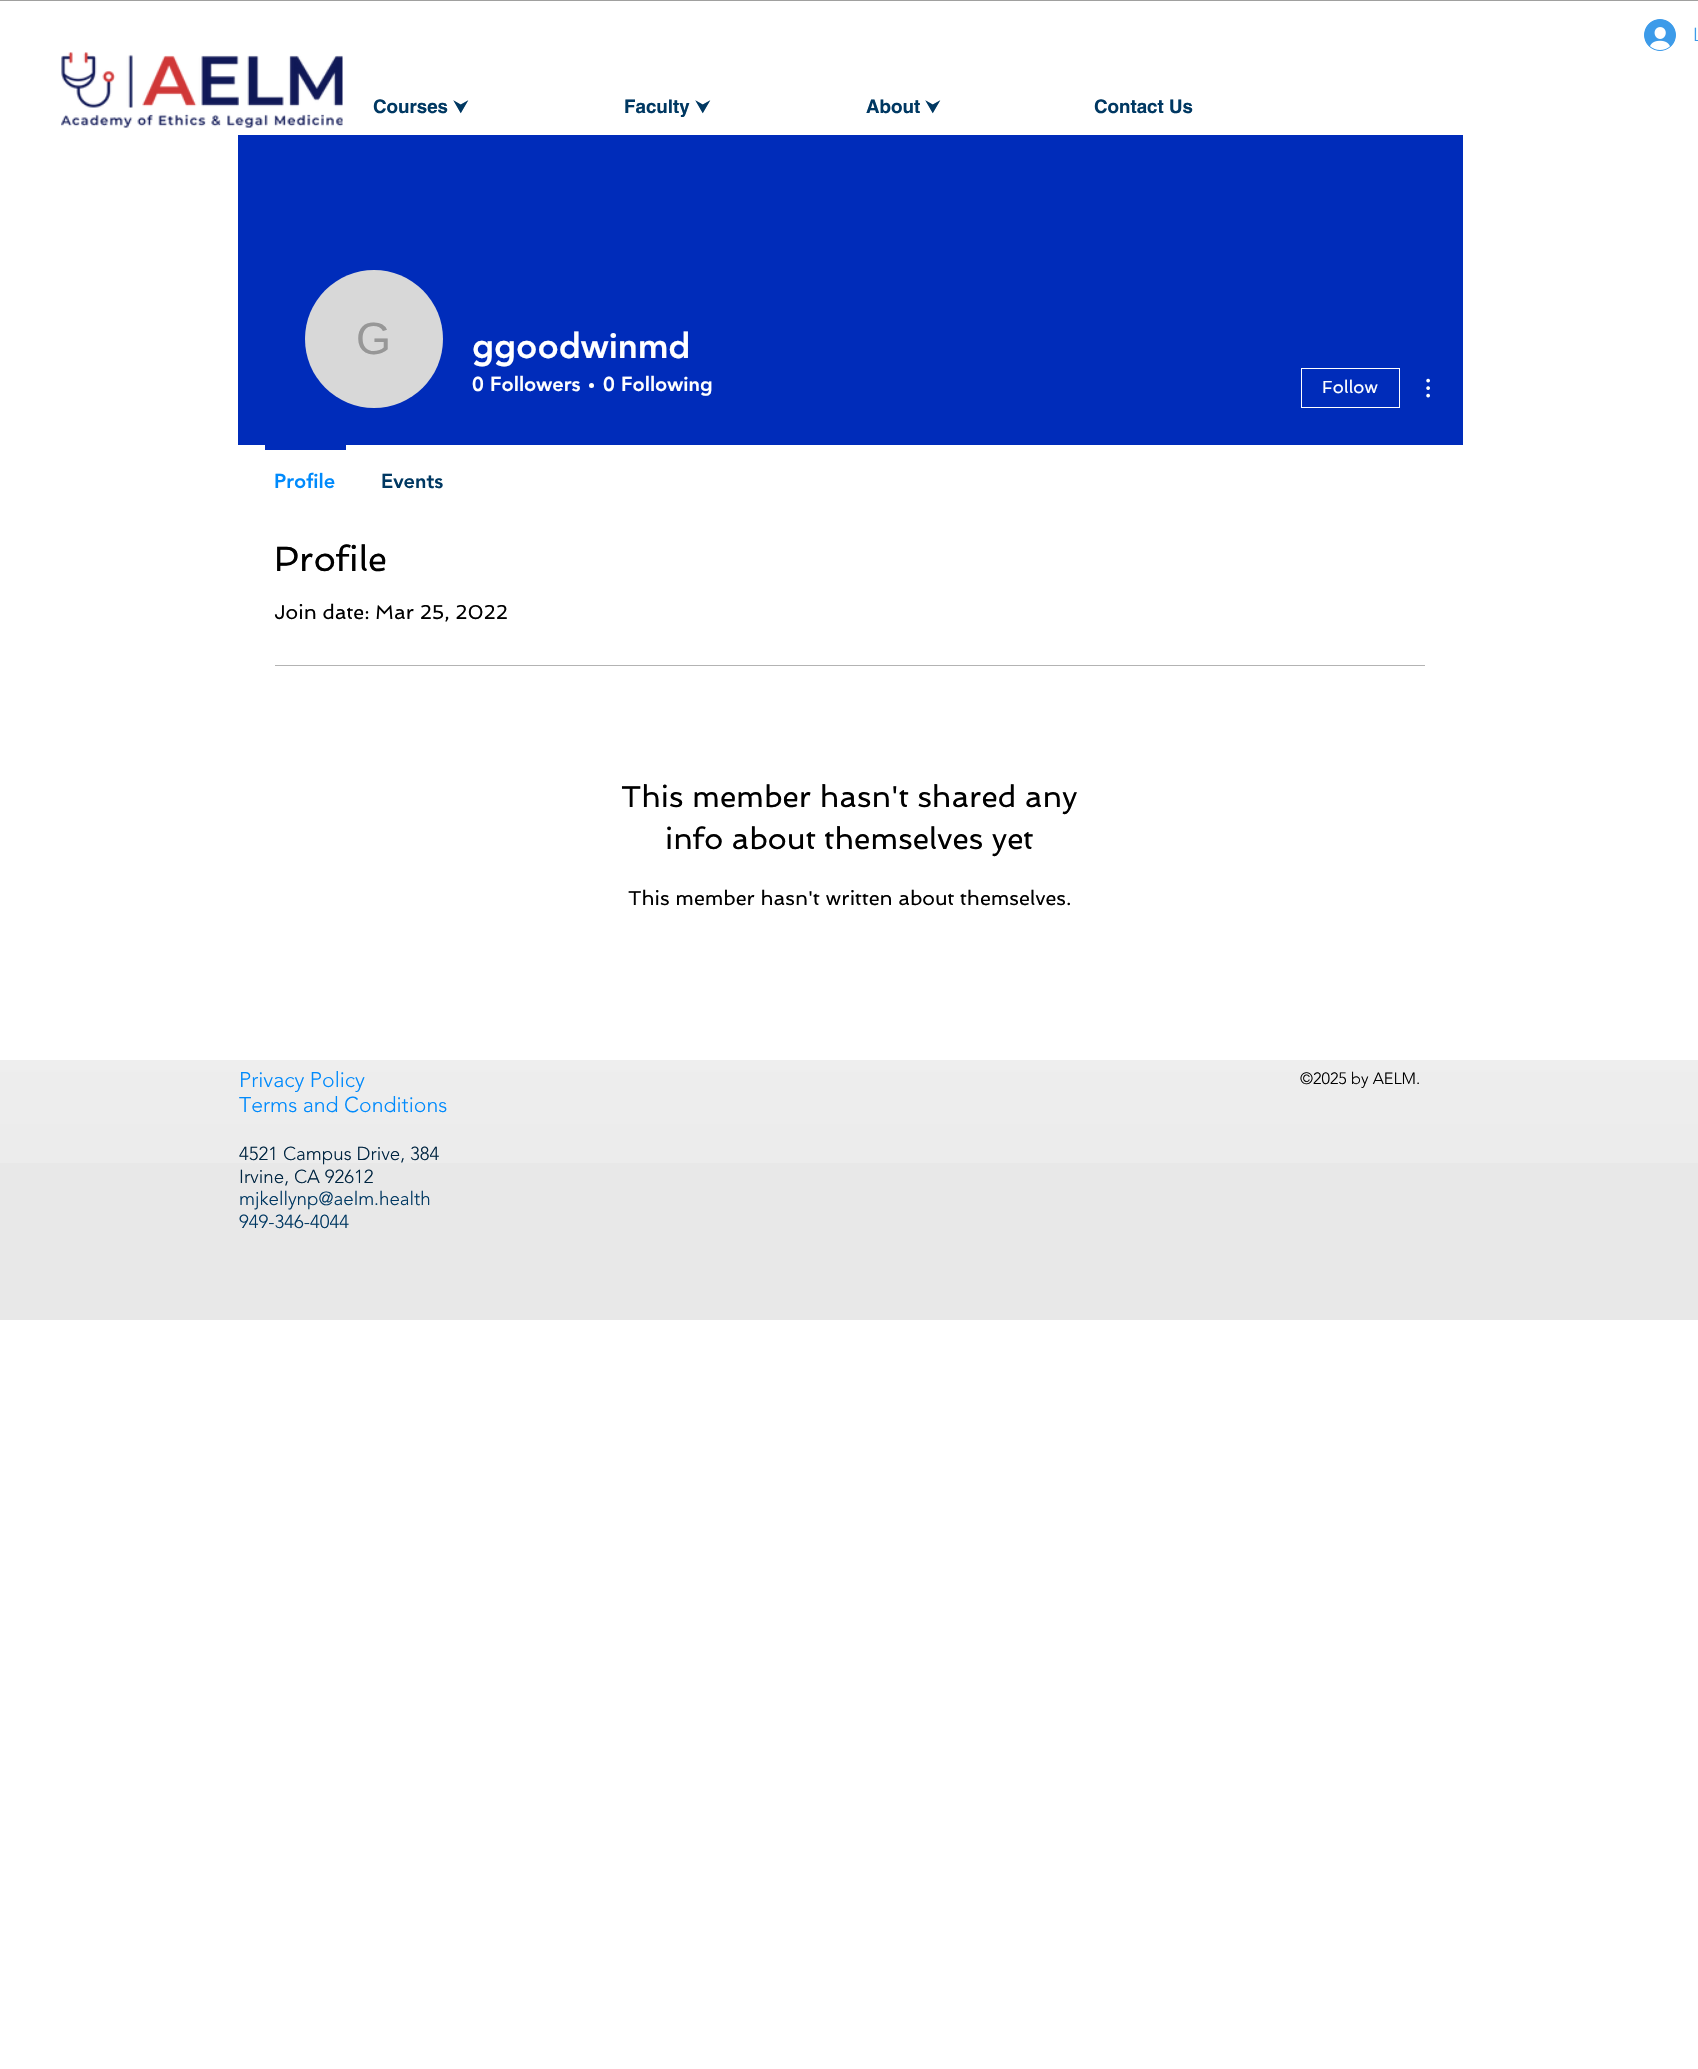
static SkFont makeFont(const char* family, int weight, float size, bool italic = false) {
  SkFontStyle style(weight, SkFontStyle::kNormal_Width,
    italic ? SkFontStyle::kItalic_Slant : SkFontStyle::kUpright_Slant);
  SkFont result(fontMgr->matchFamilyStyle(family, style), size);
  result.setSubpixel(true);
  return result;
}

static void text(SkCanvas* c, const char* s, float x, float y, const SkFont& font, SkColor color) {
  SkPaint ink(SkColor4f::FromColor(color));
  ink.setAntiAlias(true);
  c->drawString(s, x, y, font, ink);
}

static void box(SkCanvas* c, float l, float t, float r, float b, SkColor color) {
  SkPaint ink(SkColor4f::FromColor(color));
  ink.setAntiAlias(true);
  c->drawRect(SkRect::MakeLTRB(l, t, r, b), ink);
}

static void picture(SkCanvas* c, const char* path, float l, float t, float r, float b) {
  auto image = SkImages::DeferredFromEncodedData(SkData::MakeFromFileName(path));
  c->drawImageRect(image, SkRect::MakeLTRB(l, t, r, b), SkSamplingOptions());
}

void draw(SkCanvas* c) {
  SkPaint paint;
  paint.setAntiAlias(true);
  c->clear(0xffffffff);
  box(c, 0, 0, 1698, 1, 0xffa0a09f);
  picture(c, "img_01.png", 1644, 19, 1676, 51);
  SkFont face1 = makeFont("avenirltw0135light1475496", 300, 18.75f);
  text(c, "L", 1693, 41, face1, 0xff3d9be9);
  picture(c, "img_02.png", 61, 52, 343, 128);
  SkFont face2 = makeFont("helvetica", 700, 18.75f);
  text(c, "Courses", 373, 113, face2, 0xff003862);
  SkFont face3 = makeFont("FreeSans", 400, 18.75f);
  text(c, "⮟", 453, 113, face3, 0xff003862);
  text(c, "Faculty", 624, 113, face2, 0xff003862);
  text(c, "⮟", 695, 113, face3, 0xff003862);
  text(c, "About", 866, 113, face2, 0xff003862);
  text(c, "⮟", 925, 113, face3, 0xff003862);
  text(c, "Contact Us", 1094, 113, face2, 0xff003862);
  box(c, 238, 135, 1463, 445, 0xff002cba);
  paint.setColor(0xffd8d8d8);
  c->drawCircle(374, 339, 69, paint);
  SkFont face4 = makeFont("Liberation Sans", 400, 45);
  text(c, "G", 356, 354, face4, 0xff979797);
  SkFont face5 = makeFont("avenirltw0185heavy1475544", 900, 35);
  text(c, "ggoodwinmd", 472, 358, face5, 0xffffffff);
  SkFont face6 = makeFont("avenirltw0185heavy1475544", 900, 20);
  text(c, "0", 472, 391, face6, 0xffffffff);
  text(c, "Followers", 490, 391, face6, 0xffffffff);
  paint.setColor(0xffffffff);
  c->drawCircle(591.5f, 385.5f, 2.5f, paint);
  text(c, "0", 603, 391, face6, 0xffffffff);
  text(c, "Following", 621, 391, face6, 0xffffffff);
  paint.setStyle(SkPaint::kStroke_Style);
  paint.setStrokeWidth(1);
  c->drawRect(SkRect::MakeLTRB(1301.5f, 368.5f, 1399.5f, 407.5f), paint);
  SkFont face7 = makeFont("Spinnaker", 400, 17.5f);
  text(c, "Follow", 1322, 393, face7, 0xffffffff);
  picture(c, "img_03.png", 1426, 378, 1430, 398);
  box(c, 265, 445, 346, 450, 0xff002cba);
  text(c, "Profile", 274, 488, face6, 0xff008afc);
  text(c, "Events", 381, 488, face6, 0xff003862);
  SkFont face8 = makeFont("Spinnaker", 400, 35);
  text(c, "Profile", 274, 571, face8, 0xff000000);
  SkFont face9 = makeFont("Spinnaker", 400, 20);
  text(c, "Join date: Mar 25, 2022", 274, 619, face9, 0xff000000);
  box(c, 275, 665, 1425, 666, 0xffb3b3b3);
  SkFont face10 = makeFont("Spinnaker", 400, 30);
  text(c, "This member hasn't shared any", 621, 807, face10, 0xff000000);
  text(c, "info about themselves yet", 665, 849, face10, 0xff000000);
  text(c, "This member hasn't written about themselves.", 628, 905, face9, 0xff000000);
  box(c, 0, 1060, 1698, 1320, 0xffe8e8e8);
  picture(c, "img_04.png", 0, 1060, 1698, 1163);
  SkFont face11 = makeFont("avenirltw0135light1475496", 300, 21.25f);
  text(c, "Privacy Policy", 239, 1087, face11, 0xff008afc);
  text(c, "Terms and Conditions", 239, 1112, face11, 0xff008afc);
  SkFont face12 = makeFont("avenirltw0135light1475496", 300, 16.25f);
  text(c, "©2025 by AELM.", 1300, 1084, face12, 0xff000000);
  text(c, "4521 Campus Drive, 384", 239, 1160, face1, 0xff002541);
  text(c, "Irvine, CA 92612", 239, 1183, face1, 0xff002541);
  text(c, "mjkellynp@aelm.health", 239, 1205, face1, 0xff003862);
  text(c, "949-346-4044", 239, 1228, face1, 0xff003862);
}
